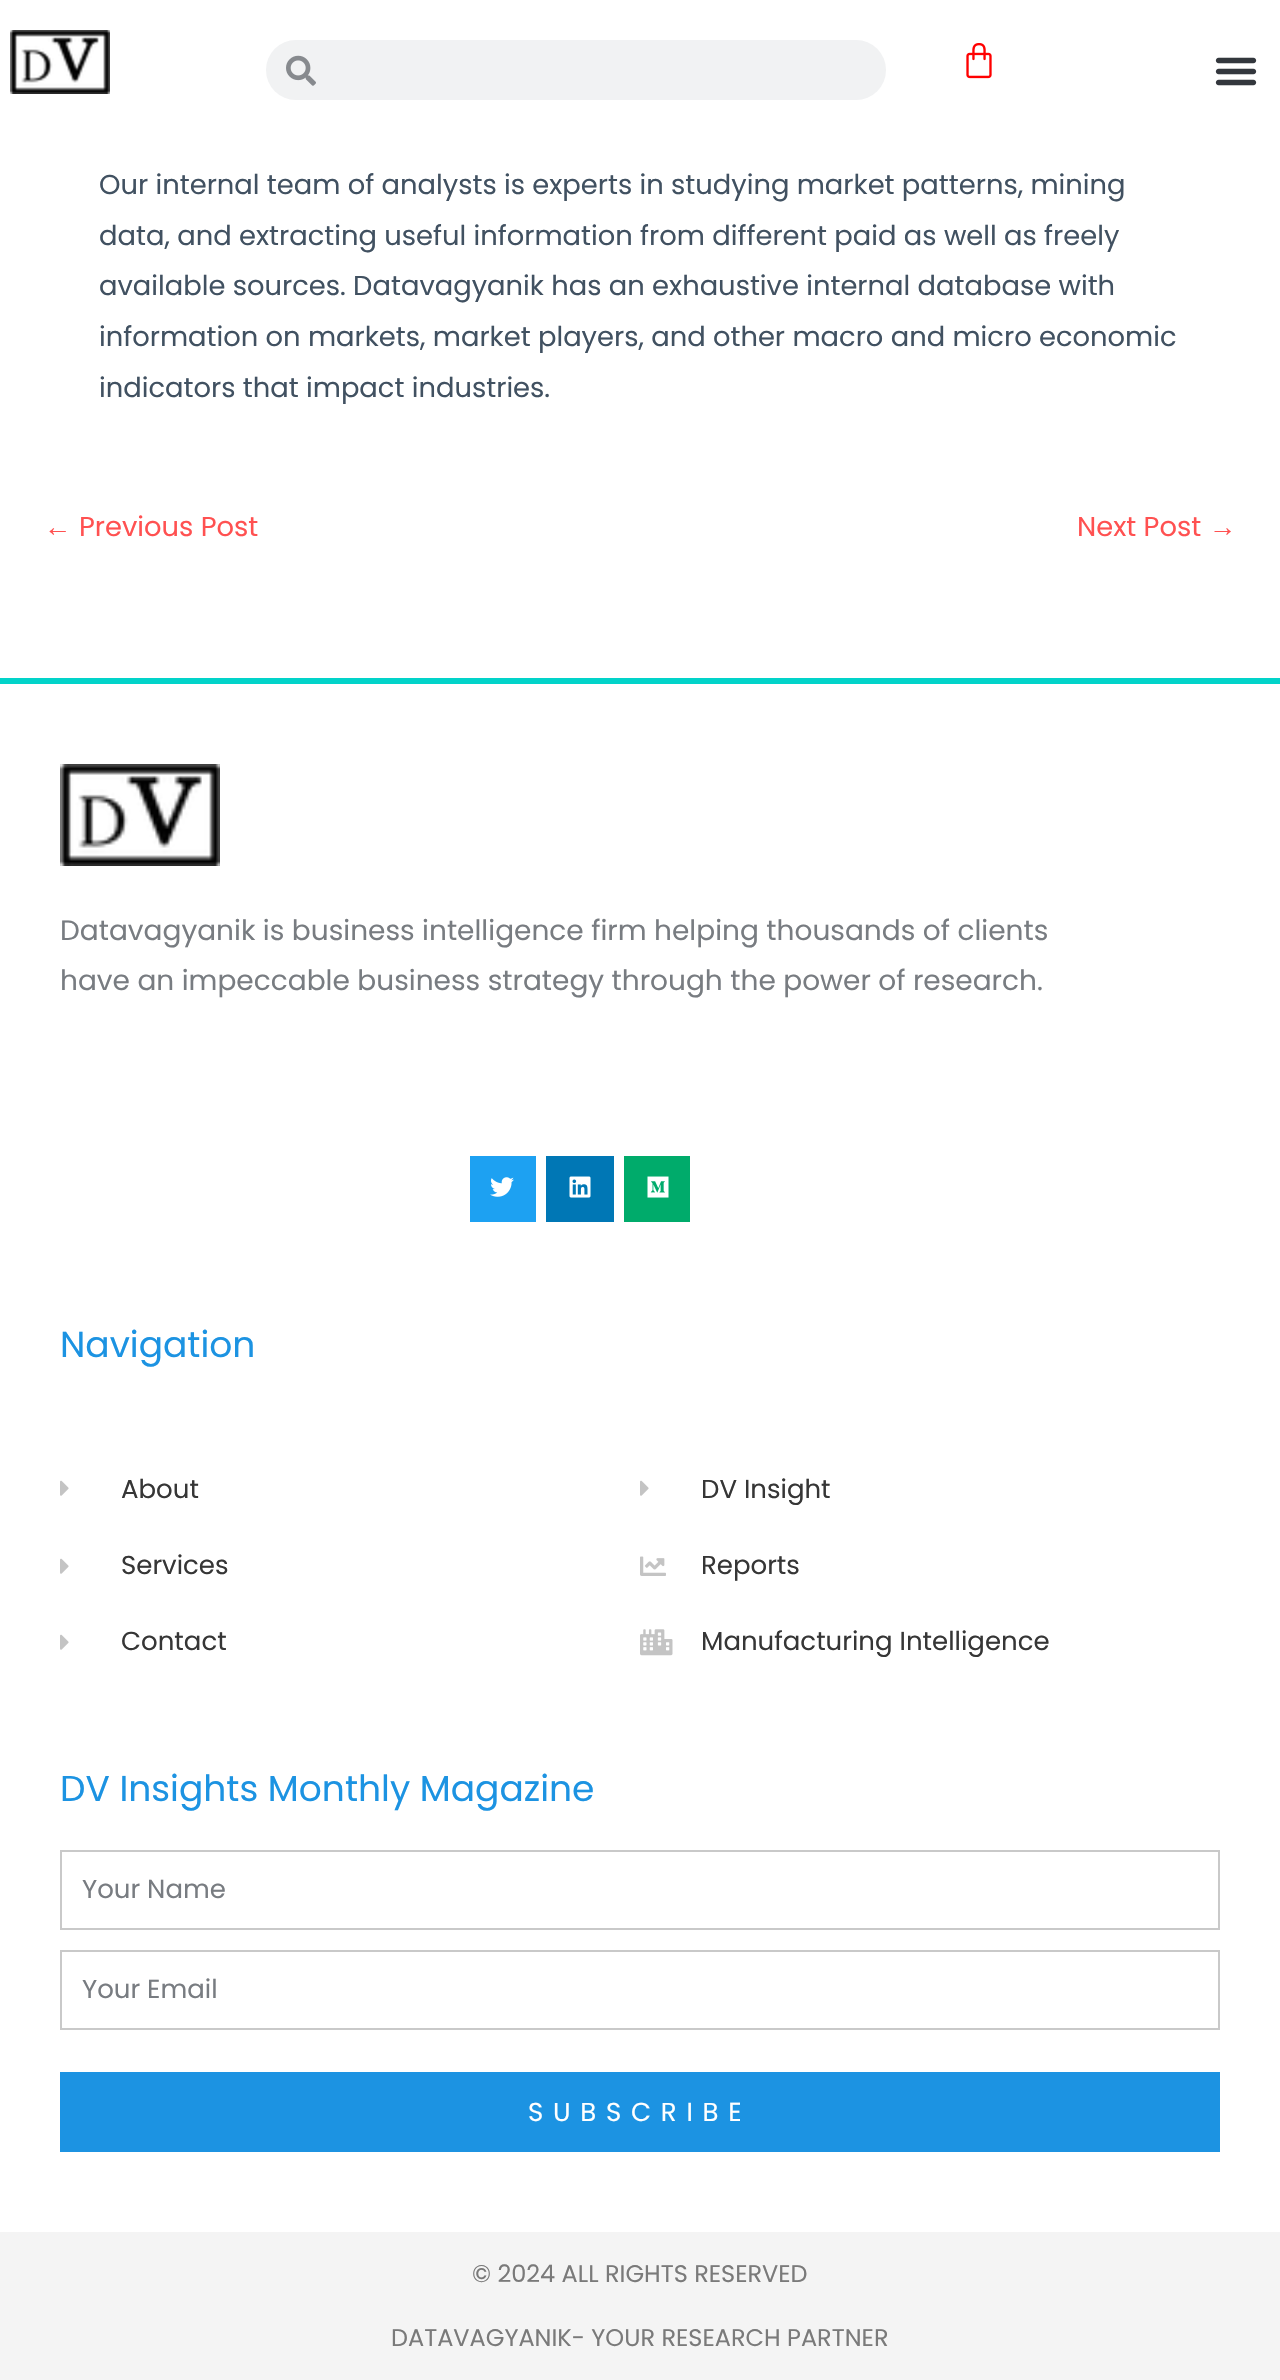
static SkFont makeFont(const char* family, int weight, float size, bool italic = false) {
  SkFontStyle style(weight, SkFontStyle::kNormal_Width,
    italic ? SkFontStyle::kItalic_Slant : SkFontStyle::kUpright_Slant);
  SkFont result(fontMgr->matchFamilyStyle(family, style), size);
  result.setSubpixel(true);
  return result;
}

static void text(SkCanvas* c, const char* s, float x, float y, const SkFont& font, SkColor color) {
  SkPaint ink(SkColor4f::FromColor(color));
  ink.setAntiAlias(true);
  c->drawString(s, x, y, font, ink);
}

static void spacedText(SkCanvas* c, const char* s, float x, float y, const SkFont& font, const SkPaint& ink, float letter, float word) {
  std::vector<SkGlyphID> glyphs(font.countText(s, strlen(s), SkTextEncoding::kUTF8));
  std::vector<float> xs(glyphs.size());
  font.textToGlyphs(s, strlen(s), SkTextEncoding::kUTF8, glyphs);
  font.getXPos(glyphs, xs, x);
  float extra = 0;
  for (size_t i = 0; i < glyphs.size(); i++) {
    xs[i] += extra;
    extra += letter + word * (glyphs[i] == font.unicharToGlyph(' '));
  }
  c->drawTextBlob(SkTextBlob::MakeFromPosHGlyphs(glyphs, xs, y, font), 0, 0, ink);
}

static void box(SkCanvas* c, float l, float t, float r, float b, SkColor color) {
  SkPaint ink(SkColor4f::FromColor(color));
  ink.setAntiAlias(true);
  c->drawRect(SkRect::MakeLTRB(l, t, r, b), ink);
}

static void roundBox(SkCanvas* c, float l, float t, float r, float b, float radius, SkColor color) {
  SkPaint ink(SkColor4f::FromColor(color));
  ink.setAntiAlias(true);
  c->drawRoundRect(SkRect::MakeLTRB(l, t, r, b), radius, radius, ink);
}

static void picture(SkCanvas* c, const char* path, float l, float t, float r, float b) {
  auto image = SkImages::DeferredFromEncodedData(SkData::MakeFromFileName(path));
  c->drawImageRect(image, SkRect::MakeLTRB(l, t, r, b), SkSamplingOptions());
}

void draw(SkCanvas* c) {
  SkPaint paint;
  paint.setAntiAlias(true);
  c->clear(0xffffffff);
  picture(c, "img_01.png", 10, 30, 110, 94);
  roundBox(c, 266, 40, 886, 100, 30, 0xfff1f2f3);
  picture(c, "img_02.png", 286, 55, 316, 86);
  picture(c, "img_03.png", 966, 43, 992, 79);
  picture(c, "img_04.png", 1215, 57, 1257, 86);
  SkFont face1 = makeFont("Poppins", 400, 27.35f);
  text(c, "Our internal team of analysts is experts in studying market patterns, mining", 99, 194, face1, 0xff415161);
  text(c, "data, and extracting useful information from different paid as well as freely", 99, 245, face1, 0xff415161);
  text(c, "available sources. Datavagyanik has an exhaustive internal database with", 99, 295, face1, 0xff415161);
  text(c, "information on markets, market players, and other macro and micro economic", 99, 346, face1, 0xff415161);
  text(c, "indicators that impact industries.", 99, 397, face1, 0xff415161);
  SkFont face2 = makeFont("Liberation Sans", 400, 27.35f);
  text(c, "←", 44, 536, face2, 0xffff5151);
  text(c, "Previous Post", 79, 536, face1, 0xffff5151);
  text(c, "Next Post", 1077, 536, face1, 0xffff5151);
  text(c, "→", 1209, 536, face2, 0xffff5151);
  box(c, 0, 678, 1280, 684, 0xff02d3c9);
  picture(c, "img_05.png", 60, 764, 220, 866);
  SkFont face3 = makeFont("Poppins", 400, 28);
  text(c, "Datavagyanik is business intelligence firm helping thousands of clients", 60, 940, face3, 0xff787c81);
  text(c, "have an impeccable business strategy through the power of research.", 60, 990, face3, 0xff787c81);
  box(c, 470, 1156, 536, 1222, 0xff1da1f2);
  picture(c, "img_06.png", 490, 1177, 514, 1197);
  box(c, 546, 1156, 614, 1222, 0xff0077b5);
  picture(c, "img_07.png", 569, 1176, 591, 1198);
  box(c, 624, 1156, 690, 1222, 0xff00ab6b);
  picture(c, "img_08.png", 647, 1176, 669, 1198);
  SkFont face4 = makeFont("Poppins", 400, 36);
  text(c, "Navigation", 60, 1357, face4, 0xff1c93e2);
  picture(c, "img_09.png", 60, 1480, 69, 1496);
  SkFont face5 = makeFont("Poppins", 400, 26);
  text(c, "About", 121, 1498, face5, 0xff363636);
  picture(c, "img_09.png", 60, 1558, 69, 1574);
  text(c, "Services", 121, 1574, face5, 0xff363636);
  picture(c, "img_09.png", 60, 1634, 69, 1650);
  text(c, "Contact", 121, 1650, face5, 0xff363636);
  picture(c, "img_09.png", 640, 1480, 649, 1496);
  text(c, "DV Insight", 701, 1498, face5, 0xff363636);
  picture(c, "img_10.png", 640, 1556, 666, 1576);
  text(c, "Reports", 701, 1574, face5, 0xff363636);
  picture(c, "img_11.png", 640, 1629, 673, 1656);
  text(c, "Manufacturing Intelligence", 701, 1650, face5, 0xff363636);
  text(c, "DV Insights Monthly Magazine", 60, 1801, face4, 0xff1c93e2);
  paint.setStyle(SkPaint::kStroke_Style);
  paint.setStrokeWidth(2);
  paint.setColor(0xffc9c9c9);
  c->drawRect(SkRect::MakeLTRB(61, 1851, 1219, 1929), paint);
  text(c, "Your Name", 82, 1898, face5, 0xff787c81);
  c->drawRect(SkRect::MakeLTRB(61, 1951, 1219, 2029), paint);
  text(c, "Your Email", 82, 1998, face5, 0xff787c81);
  box(c, 60, 2072, 1220, 2152, 0xff1c93e2);
  paint.setStyle(SkPaint::kFill_Style);
  paint.setColor(0xffffffff);
  spacedText(c, "SUBSCRIBE", 528, 2121, face5, paint, 9.75f, 0);
  box(c, 0, 2232, 1280, 2380, 0xfff4f4f4);
  SkFont face6 = makeFont("Poppins", 400, 24);
  text(c, "© 2024 ALL RIGHTS RESERVED", 472, 2282, face6, 0xff7a7a7a);
  text(c, "DATAVAGYANIK- YOUR RESEARCH PARTNER", 391, 2346, face6, 0xff7a7a7a);
}
